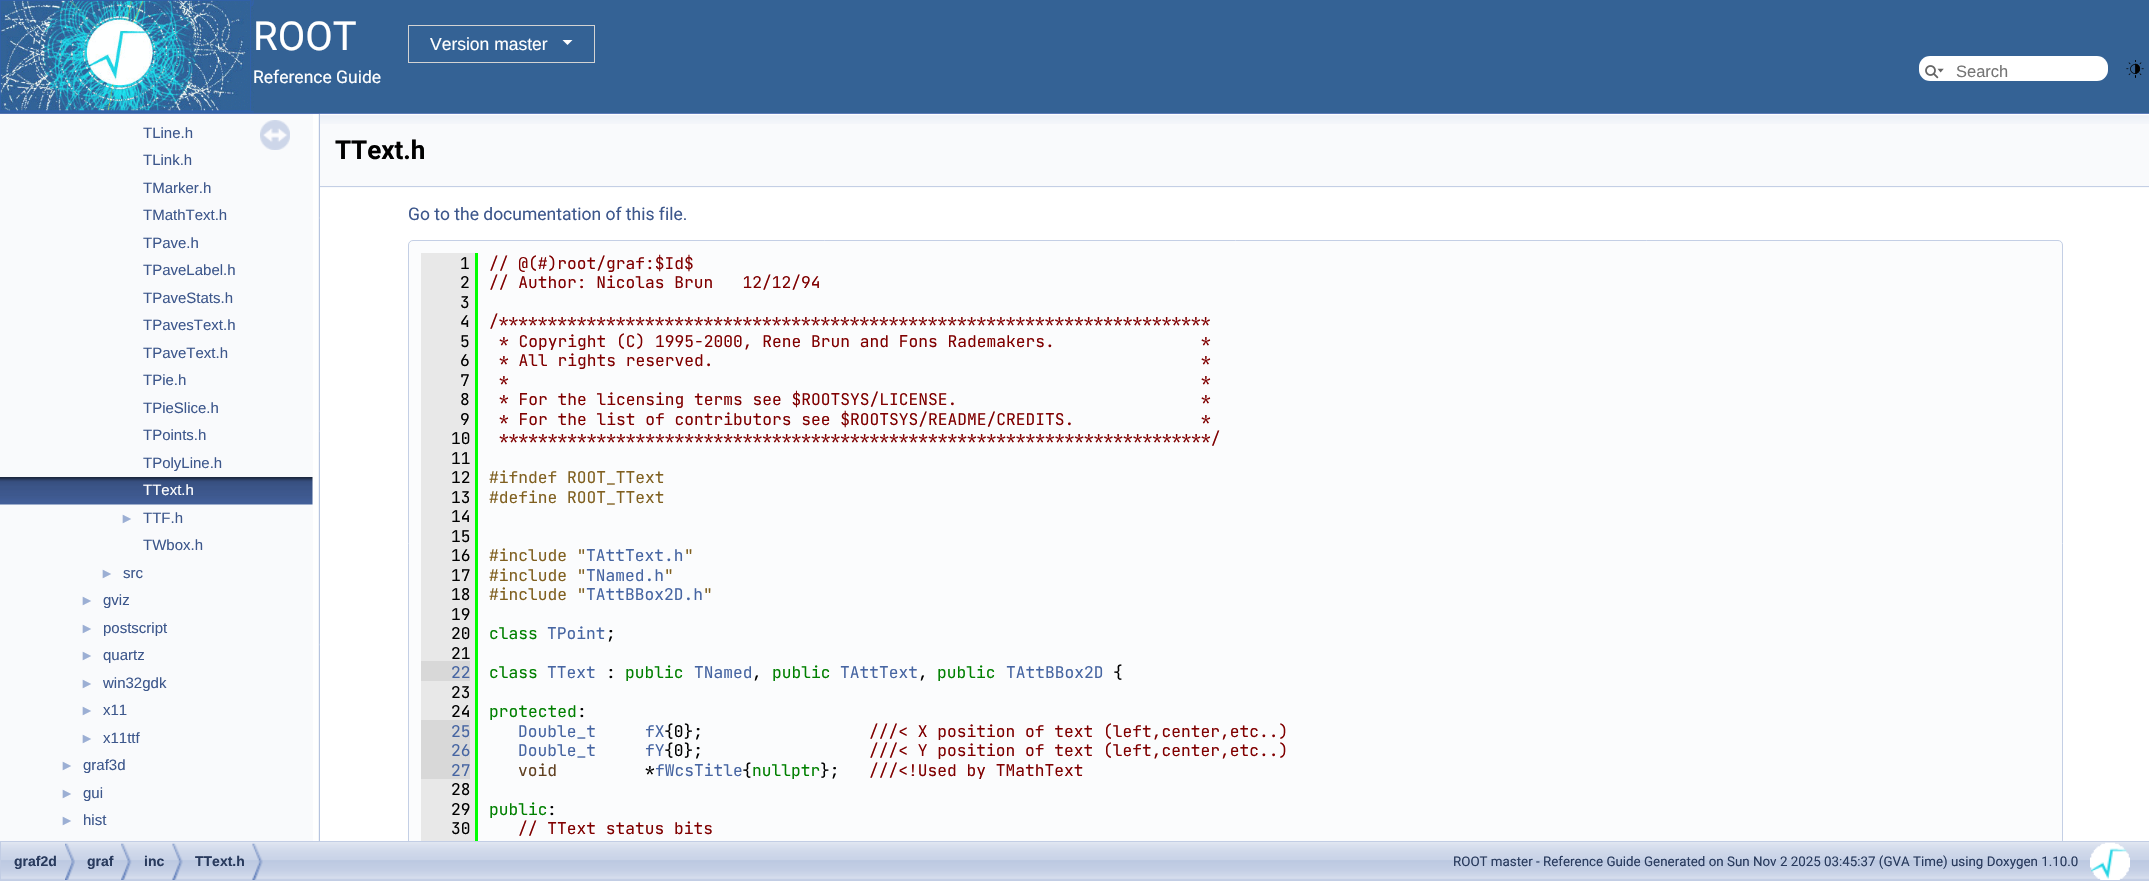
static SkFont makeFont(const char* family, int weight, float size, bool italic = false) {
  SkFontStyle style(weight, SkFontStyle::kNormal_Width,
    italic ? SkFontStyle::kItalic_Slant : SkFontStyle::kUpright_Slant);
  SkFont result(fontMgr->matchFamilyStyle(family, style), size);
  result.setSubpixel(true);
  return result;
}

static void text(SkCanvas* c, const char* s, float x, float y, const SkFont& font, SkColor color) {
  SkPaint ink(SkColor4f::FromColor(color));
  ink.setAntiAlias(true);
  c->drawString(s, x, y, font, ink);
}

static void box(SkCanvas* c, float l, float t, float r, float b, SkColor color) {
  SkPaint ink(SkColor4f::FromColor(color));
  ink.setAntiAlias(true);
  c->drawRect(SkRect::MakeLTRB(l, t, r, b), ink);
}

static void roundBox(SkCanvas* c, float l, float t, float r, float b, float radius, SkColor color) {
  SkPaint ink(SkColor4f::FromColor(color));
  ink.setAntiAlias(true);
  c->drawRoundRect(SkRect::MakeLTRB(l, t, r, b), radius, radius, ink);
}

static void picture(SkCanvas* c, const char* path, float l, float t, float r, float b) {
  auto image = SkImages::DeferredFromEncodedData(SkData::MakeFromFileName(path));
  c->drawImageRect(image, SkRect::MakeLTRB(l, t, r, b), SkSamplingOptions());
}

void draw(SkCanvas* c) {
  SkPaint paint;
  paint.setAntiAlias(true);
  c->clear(0xffffffff);
  box(c, 0, 113, 2149, 114, 0xff5373b4);
  box(c, 0, 0, 2149, 113, 0xff346295);
  picture(c, "img_01.png", 0, 0, 254, 113);
  SkFont face1 = makeFont("Roboto", 400, 40);
  text(c, "ROOT", 253, 50, face1, 0xffffffff);
  paint.setStyle(SkPaint::kStroke_Style);
  paint.setStrokeWidth(1);
  paint.setColor(0xffd3d3d3);
  c->drawRect(SkRect::MakeLTRB(408.5f, 25.5f, 594.5f, 62.5f), paint);
  SkFont face2 = makeFont("Liberation Sans", 400, 17.5f);
  text(c, "Version master", 430, 50, face2, 0xffffffff);
  paint.setStyle(SkPaint::kFill_Style);
  paint.setColor(0xffffffff);
  c->drawPath(SkPathBuilder().moveTo(562.5f, 40).lineTo(572.5f, 40).lineTo(567.5f, 45).close().detach(), paint);
  SkFont face3 = makeFont("Roboto", 400, 17.5f);
  text(c, "Reference Guide", 253, 83, face3, 0xffffffff);
  roundBox(c, 1919, 56, 2108, 81, 11, 0xffffffff);
  picture(c, "img_02.png", 1925, 65, 1944, 79);
  SkFont face4 = makeFont("Liberation Sans", 400, 16.5f);
  text(c, "Search", 1956, 77, face4, 0xff757575);
  picture(c, "img_03.png", 2126, 60, 2144, 78);
  box(c, 0, 114, 313, 841, 0xfff9fafc);
  SkFont face5 = makeFont("Liberation Sans", 400, 15);
  text(c, "TLine.h", 143, 138, face5, 0xff3d578c);
  text(c, "TLink.h", 143, 165, face5, 0xff3d578c);
  text(c, "TMarker.h", 143, 193, face5, 0xff3d578c);
  text(c, "TMathText.h", 143, 220, face5, 0xff3d578c);
  text(c, "TPave.h", 143, 248, face5, 0xff3d578c);
  text(c, "TPaveLabel.h", 143, 275, face5, 0xff3d578c);
  text(c, "TPaveStats.h", 143, 303, face5, 0xff3d578c);
  text(c, "TPavesText.h", 143, 330, face5, 0xff3d578c);
  text(c, "TPaveText.h", 143, 358, face5, 0xff3d578c);
  text(c, "TPie.h", 143, 385, face5, 0xff3d578c);
  text(c, "TPieSlice.h", 143, 413, face5, 0xff3d578c);
  text(c, "TPoints.h", 143, 440, face5, 0xff3d578c);
  text(c, "TPolyLine.h", 143, 468, face5, 0xff3d578c);
  picture(c, "img_04.png", 0, 477, 313, 505);
  text(c, "TText.h", 143, 495, face5, 0xffffffff);
  SkFont face6 = makeFont("Liberation Sans", 400, 14);
  text(c, "►", 120, 523, face6, 0xff9cafd4);
  text(c, "TTF.h", 143, 523, face5, 0xff3d578c);
  text(c, "TWbox.h", 143, 550, face5, 0xff3d578c);
  text(c, "►", 100, 578, face6, 0xff9cafd4);
  text(c, "src", 123, 578, face5, 0xff3d578c);
  text(c, "►", 80, 605, face6, 0xff9cafd4);
  text(c, "gviz", 103, 605, face5, 0xff3d578c);
  text(c, "►", 80, 633, face6, 0xff9cafd4);
  text(c, "postscript", 103, 633, face5, 0xff3d578c);
  text(c, "►", 80, 660, face6, 0xff9cafd4);
  text(c, "quartz", 103, 660, face5, 0xff3d578c);
  text(c, "►", 80, 688, face6, 0xff9cafd4);
  text(c, "win32gdk", 103, 688, face5, 0xff3d578c);
  text(c, "►", 80, 715, face6, 0xff9cafd4);
  text(c, "x11", 103, 715, face5, 0xff3d578c);
  text(c, "►", 80, 743, face6, 0xff9cafd4);
  text(c, "x11ttf", 103, 743, face5, 0xff3d578c);
  text(c, "►", 60, 770, face6, 0xff9cafd4);
  text(c, "graf3d", 83, 770, face5, 0xff3d578c);
  text(c, "►", 60, 798, face6, 0xff9cafd4);
  text(c, "gui", 83, 798, face5, 0xff3d578c);
  text(c, "►", 60, 825, face6, 0xff9cafd4);
  text(c, "hist", 83, 825, face5, 0xff3d578c);
  picture(c, "img_05.png", 260, 120, 290, 150);
  picture(c, "img_06.png", 318, 113, 320, 841);
  box(c, 320, 124, 2149, 188, 0xfff9fafc);
  picture(c, "img_07.png", 320, 113, 2149, 124);
  box(c, 320, 186, 2149, 187, 0xffc4cfe5);
  SkFont face7 = makeFont("Roboto", 700, 26);
  text(c, "TText.h", 335, 159, face7, 0xff000000);
  text(c, "Go to the documentation of this file.", 408, 220, face3, 0xff3d578c);
  paint.setColor(0xfffbfcfd);
  c->drawPath(SkPathBuilder().moveTo(413, 240).lineTo(2058, 240).cubicTo(2061, 240, 2063, 242, 2063, 245).lineTo(2063, 841).lineTo(408, 841).lineTo(408, 245).cubicTo(408, 242, 410, 240, 413, 240).close().detach(), paint);
  picture(c, "img_08.png", 1, 842, 2149, 880);
  paint.setStyle(SkPaint::kStroke_Style);
  paint.setColor(0xffc2cde4);
  c->drawRect(SkRect::MakeLTRB(0.5f, 841.5f, 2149.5f, 880.5f), paint);
  SkFont face8 = makeFont("Roboto", 400, 13.35f);
  text(c, "ROOT master - Reference Guide Generated on Sun Nov 2 2025 03:45:37 (GVA Time) using Doxygen 1.10.0", 1453, 866, face8, 0xff283a5d);
  c->save();
  c->clipRect(SkRect::MakeLTRB(320, 114, 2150, 841));
  paint.setColor(0xffc4cfe5);
  c->drawRoundRect(SkRect::MakeLTRB(408.5f, 240.5f, 2062.5f, 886.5f), 4.5f, 4.5f, paint);
  c->restore();
  box(c, 421, 253, 475, 661, 0xffe8e8e8);
  SkFont face9 = makeFont("JetBrains Mono", 400, 16.25f);
  text(c, "1", 460, 269, face9, 0xff000000);
  box(c, 475, 253, 478, 839, 0xff00ff00);
  text(c, "// @(#)root/graf:$Id$", 489, 269, face9, 0xff800000);
  text(c, "2", 460, 288, face9, 0xff000000);
  text(c, "// Author: Nicolas Brun   12/12/94", 489, 288, face9, 0xff800000);
  text(c, "3", 460, 308, face9, 0xff000000);
  text(c, "4", 460, 327, face9, 0xff000000);
  text(c, "/*************************************************************************", 489, 327, face9, 0xff800000);
  text(c, "5", 460, 347, face9, 0xff000000);
  text(c, "* Copyright (C) 1995-2000, Rene Brun and Fons Rademakers.               *", 499, 347, face9, 0xff800000);
  text(c, "6", 460, 366, face9, 0xff000000);
  text(c, "* All rights reserved.                                                  *", 499, 366, face9, 0xff800000);
  text(c, "7", 460, 386, face9, 0xff000000);
  text(c, "*                                                                       *", 499, 386, face9, 0xff800000);
  text(c, "8", 460, 405, face9, 0xff000000);
  text(c, "* For the licensing terms see $ROOTSYS/LICENSE.                         *", 499, 405, face9, 0xff800000);
  text(c, "9", 460, 425, face9, 0xff000000);
  text(c, "* For the list of contributors see $ROOTSYS/README/CREDITS.             *", 499, 425, face9, 0xff800000);
  text(c, "10", 451, 444, face9, 0xff000000);
  text(c, "*************************************************************************/", 499, 444, face9, 0xff800000);
  text(c, "11", 451, 464, face9, 0xff000000);
  text(c, "12", 451, 483, face9, 0xff000000);
  text(c, "#ifndef ROOT_TText", 489, 483, face9, 0xff806020);
  text(c, "13", 451, 503, face9, 0xff000000);
  text(c, "#define ROOT_TText", 489, 503, face9, 0xff806020);
  text(c, "14", 451, 522, face9, 0xff000000);
  text(c, "15", 451, 542, face9, 0xff000000);
  text(c, "16", 451, 561, face9, 0xff000000);
  text(c, "#include \"", 489, 561, face9, 0xff806020);
  text(c, "TAttText.h", 586, 561, face9, 0xff4665a2);
  text(c, "\"", 684, 561, face9, 0xff806020);
  text(c, "17", 451, 581, face9, 0xff000000);
  text(c, "#include \"", 489, 581, face9, 0xff806020);
  text(c, "TNamed.h", 586, 581, face9, 0xff4665a2);
  text(c, "\"", 664, 581, face9, 0xff806020);
  text(c, "18", 451, 600, face9, 0xff000000);
  text(c, "#include \"", 489, 600, face9, 0xff806020);
  text(c, "TAttBBox2D.h", 586, 600, face9, 0xff4665a2);
  text(c, "\"", 703, 600, face9, 0xff806020);
  text(c, "19", 451, 620, face9, 0xff000000);
  text(c, "20", 451, 639, face9, 0xff000000);
  text(c, "class", 489, 639, face9, 0xff008000);
  text(c, "TPoint", 547, 639, face9, 0xff4665a2);
  text(c, ";", 606, 639, face9, 0xff000000);
  text(c, "21", 451, 659, face9, 0xff000000);
  box(c, 421, 661, 470, 681, 0xffd8d8d8);
  text(c, "22", 451, 678, face9, 0xff4665a2);
  box(c, 470, 661, 475, 681, 0xffe8e8e8);
  text(c, "class", 489, 678, face9, 0xff008000);
  text(c, "TText", 547, 678, face9, 0xff4665a2);
  text(c, ":", 606, 678, face9, 0xff000000);
  text(c, "public", 625, 678, face9, 0xff008000);
  text(c, "TNamed", 694, 678, face9, 0xff4665a2);
  text(c, ",", 752, 678, face9, 0xff000000);
  text(c, "public", 772, 678, face9, 0xff008000);
  text(c, "TAttText", 840, 678, face9, 0xff4665a2);
  text(c, ",", 918, 678, face9, 0xff000000);
  text(c, "public", 937, 678, face9, 0xff008000);
  text(c, "TAttBBox2D", 1006, 678, face9, 0xff4665a2);
  text(c, "{", 1113, 678, face9, 0xff000000);
  box(c, 421, 681, 475, 720, 0xffe8e8e8);
  text(c, "23", 451, 698, face9, 0xff000000);
  text(c, "24", 451, 717, face9, 0xff000000);
  text(c, "protected", 489, 717, face9, 0xff008000);
  text(c, ":", 577, 717, face9, 0xff000000);
  box(c, 421, 720, 470, 779, 0xffd8d8d8);
  text(c, "25", 451, 737, face9, 0xff4665a2);
  box(c, 470, 720, 475, 779, 0xffe8e8e8);
  text(c, "Double_t", 518, 737, face9, 0xff4665a2);
  text(c, "fX", 645, 737, face9, 0xff4665a2);
  text(c, "{0};", 664, 737, face9, 0xff000000);
  text(c, "///< X position of text (left,center,etc..)", 869, 737, face9, 0xff800000);
  text(c, "26", 451, 756, face9, 0xff4665a2);
  text(c, "Double_t", 518, 756, face9, 0xff4665a2);
  text(c, "fY", 645, 756, face9, 0xff4665a2);
  text(c, "{0};", 664, 756, face9, 0xff000000);
  text(c, "///< Y position of text (left,center,etc..)", 869, 756, face9, 0xff800000);
  text(c, "27", 451, 776, face9, 0xff4665a2);
  text(c, "void", 518, 776, face9, 0xff604020);
  text(c, "*", 645, 776, face9, 0xff000000);
  text(c, "fWcsTitle", 655, 776, face9, 0xff4665a2);
  text(c, "{", 742, 776, face9, 0xff000000);
  text(c, "nullptr", 752, 776, face9, 0xff008000);
  text(c, "};", 820, 776, face9, 0xff000000);
  text(c, "///<!Used by TMathText", 869, 776, face9, 0xff800000);
  box(c, 421, 779, 475, 838, 0xffe8e8e8);
  text(c, "28", 451, 795, face9, 0xff000000);
  text(c, "29", 451, 815, face9, 0xff000000);
  text(c, "public", 489, 815, face9, 0xff008000);
  text(c, ":", 547, 815, face9, 0xff000000);
  text(c, "30", 451, 834, face9, 0xff000000);
  text(c, "// TText status bits", 518, 834, face9, 0xff800000);
  box(c, 421, 838, 478, 841, 0xffe8e8e8);
  box(c, 475, 838, 478, 841, 0xff00ff00);
  picture(c, "img_09.png", 65, 843, 75, 880);
  SkFont face10 = makeFont("Liberation Sans", 700, 14);
  text(c, "graf2d", 14, 866, face10, 0xff283a5d);
  picture(c, "img_10.png", 121, 843, 132, 880);
  text(c, "graf", 87, 866, face10, 0xff283a5d);
  picture(c, "img_11.png", 172, 843, 183, 880);
  text(c, "inc", 144, 866, face10, 0xff283a5d);
  picture(c, "img_11.png", 252, 843, 263, 880);
  text(c, "TText.h", 195, 866, face10, 0xff283a5d);
  picture(c, "img_12.png", 2090, 842, 2130, 880);
}
